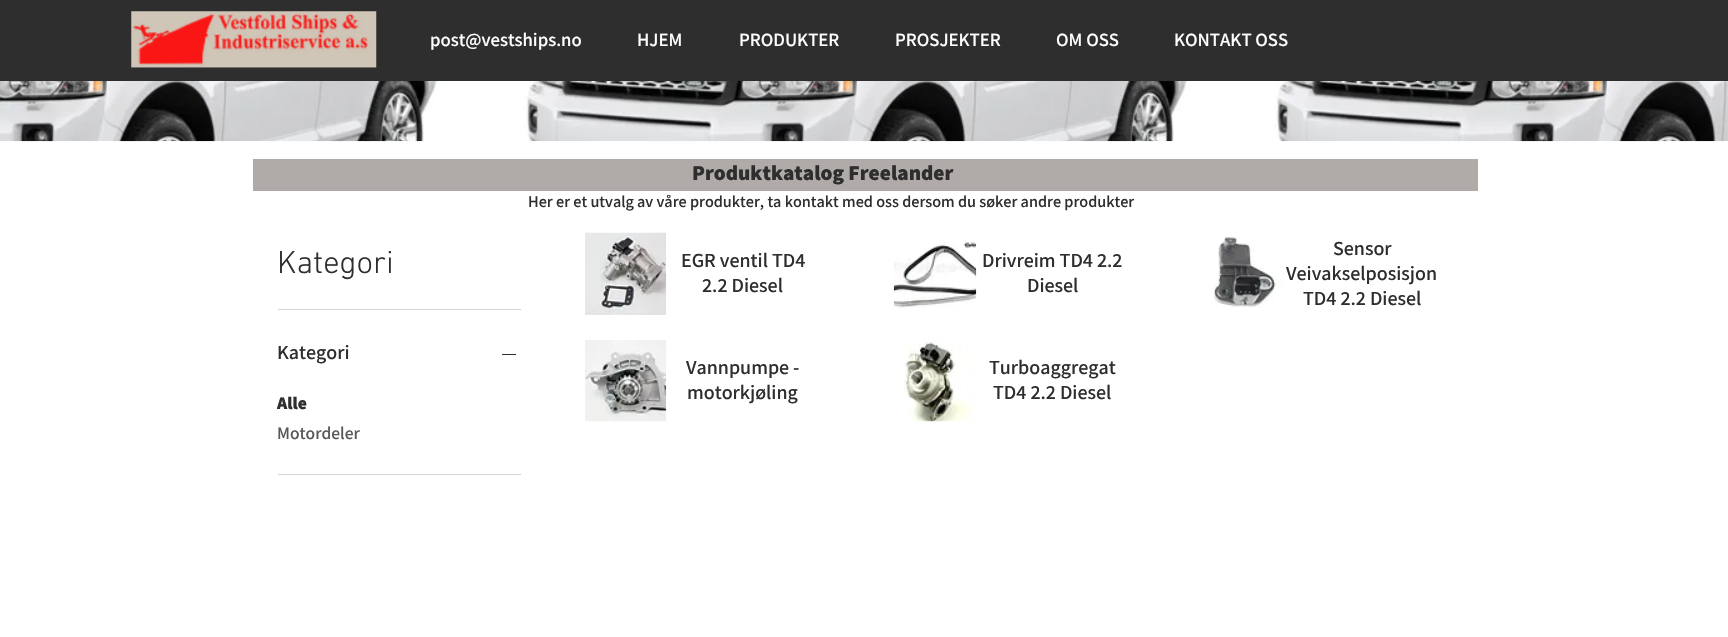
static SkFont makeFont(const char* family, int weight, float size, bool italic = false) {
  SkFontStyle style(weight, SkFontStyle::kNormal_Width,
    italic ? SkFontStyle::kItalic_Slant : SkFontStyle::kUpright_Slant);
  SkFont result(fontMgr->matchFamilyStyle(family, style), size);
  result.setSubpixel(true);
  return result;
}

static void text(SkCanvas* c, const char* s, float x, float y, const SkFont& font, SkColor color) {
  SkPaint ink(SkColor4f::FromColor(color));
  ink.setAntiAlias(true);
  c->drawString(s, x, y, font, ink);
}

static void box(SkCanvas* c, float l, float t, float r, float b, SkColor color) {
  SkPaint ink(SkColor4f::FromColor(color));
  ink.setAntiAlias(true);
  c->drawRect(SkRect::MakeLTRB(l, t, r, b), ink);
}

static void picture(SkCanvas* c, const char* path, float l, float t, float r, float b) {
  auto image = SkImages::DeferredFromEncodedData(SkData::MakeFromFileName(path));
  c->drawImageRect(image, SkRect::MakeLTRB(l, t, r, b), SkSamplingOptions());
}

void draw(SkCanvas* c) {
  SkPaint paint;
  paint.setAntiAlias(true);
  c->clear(0xffffffff);
  box(c, 0, 0, 1728, 81, 0xff2f2e2e);
  picture(c, "img_01.png", 131, 11, 377, 68);
  SkFont face1 = makeFont("Assistant", 600, 18.75f);
  text(c, "post@vestships.no", 430, 46, face1, 0xffffffff);
  text(c, "HJEM", 637, 46, face1, 0xffffffff);
  text(c, "PRODUKTER", 739, 46, face1, 0xffffffff);
  text(c, "PROSJEKTER", 895, 46, face1, 0xffffffff);
  text(c, "OM OSS", 1056, 46, face1, 0xffffffff);
  text(c, "KONTAKT OSS", 1174, 46, face1, 0xffffffff);
  picture(c, "img_02.png", 0, 81, 1728, 142);
  box(c, 253, 159, 1478, 191, 0xffb0aaa9);
  SkFont face2 = makeFont("Assistant", 800, 21.25f);
  text(c, "Produktkatalog Freelander", 692, 180, face2, 0xff2f2e2e);
  SkFont face3 = makeFont("Assistant", 600, 16.25f);
  text(c, "Her er et utvalg av våre produkter, ta kontakt med oss dersom du søker andre produkter", 528, 207, face3, 0xff2f2e2e);
  box(c, 278, 309, 521, 310, 0xffd5d5d5);
  SkFont face4 = makeFont("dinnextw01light", 300, 32.5f);
  text(c, "Kategori", 277, 273, face4, 0xff2f2e2e);
  box(c, 278, 474, 521, 475, 0xffd5d5d5);
  SkFont face5 = makeFont("Assistant", 600, 20);
  text(c, "Kategori", 277, 359, face5, 0xff2f2e2e);
  box(c, 502, 354, 516, 355, 0xff2f2e2e);
  SkFont face6 = makeFont("Assistant", 800, 17.5f);
  text(c, "Alle", 277, 409, face6, 0xff2f2e2e);
  SkFont face7 = makeFont("Assistant", 600, 17.5f);
  text(c, "Motordeler", 277, 439, face7, 0xff595858);
  picture(c, "img_03.png", 585, 232, 667, 315);
  text(c, "EGR ventil TD4", 681, 267, face5, 0xff2f2e2e);
  text(c, "2.2 Diesel", 702, 292, face5, 0xff2f2e2e);
  picture(c, "img_04.png", 893, 242, 977, 308);
  text(c, "Drivreim TD4 2.2", 982, 267, face5, 0xff2f2e2e);
  text(c, "Diesel", 1027, 292, face5, 0xff2f2e2e);
  text(c, "Veivakselposisjon", 1286, 280, face5, 0xff2f2e2e);
  picture(c, "img_05.png", 1213, 237, 1287, 308);
  text(c, "Sensor", 1333, 255, face5, 0xff2f2e2e);
  text(c, "TD4 2.2 Diesel", 1303, 305, face5, 0xff2f2e2e);
  picture(c, "img_06.png", 585, 340, 667, 422);
  text(c, "Vannpumpe -", 686, 374, face5, 0xff2f2e2e);
  text(c, "motorkjøling", 687, 399, face5, 0xff2f2e2e);
  picture(c, "img_07.png", 903, 340, 974, 422);
  text(c, "Turboaggregat", 989, 374, face5, 0xff2f2e2e);
  text(c, "TD4 2.2 Diesel", 993, 399, face5, 0xff2f2e2e);
}
